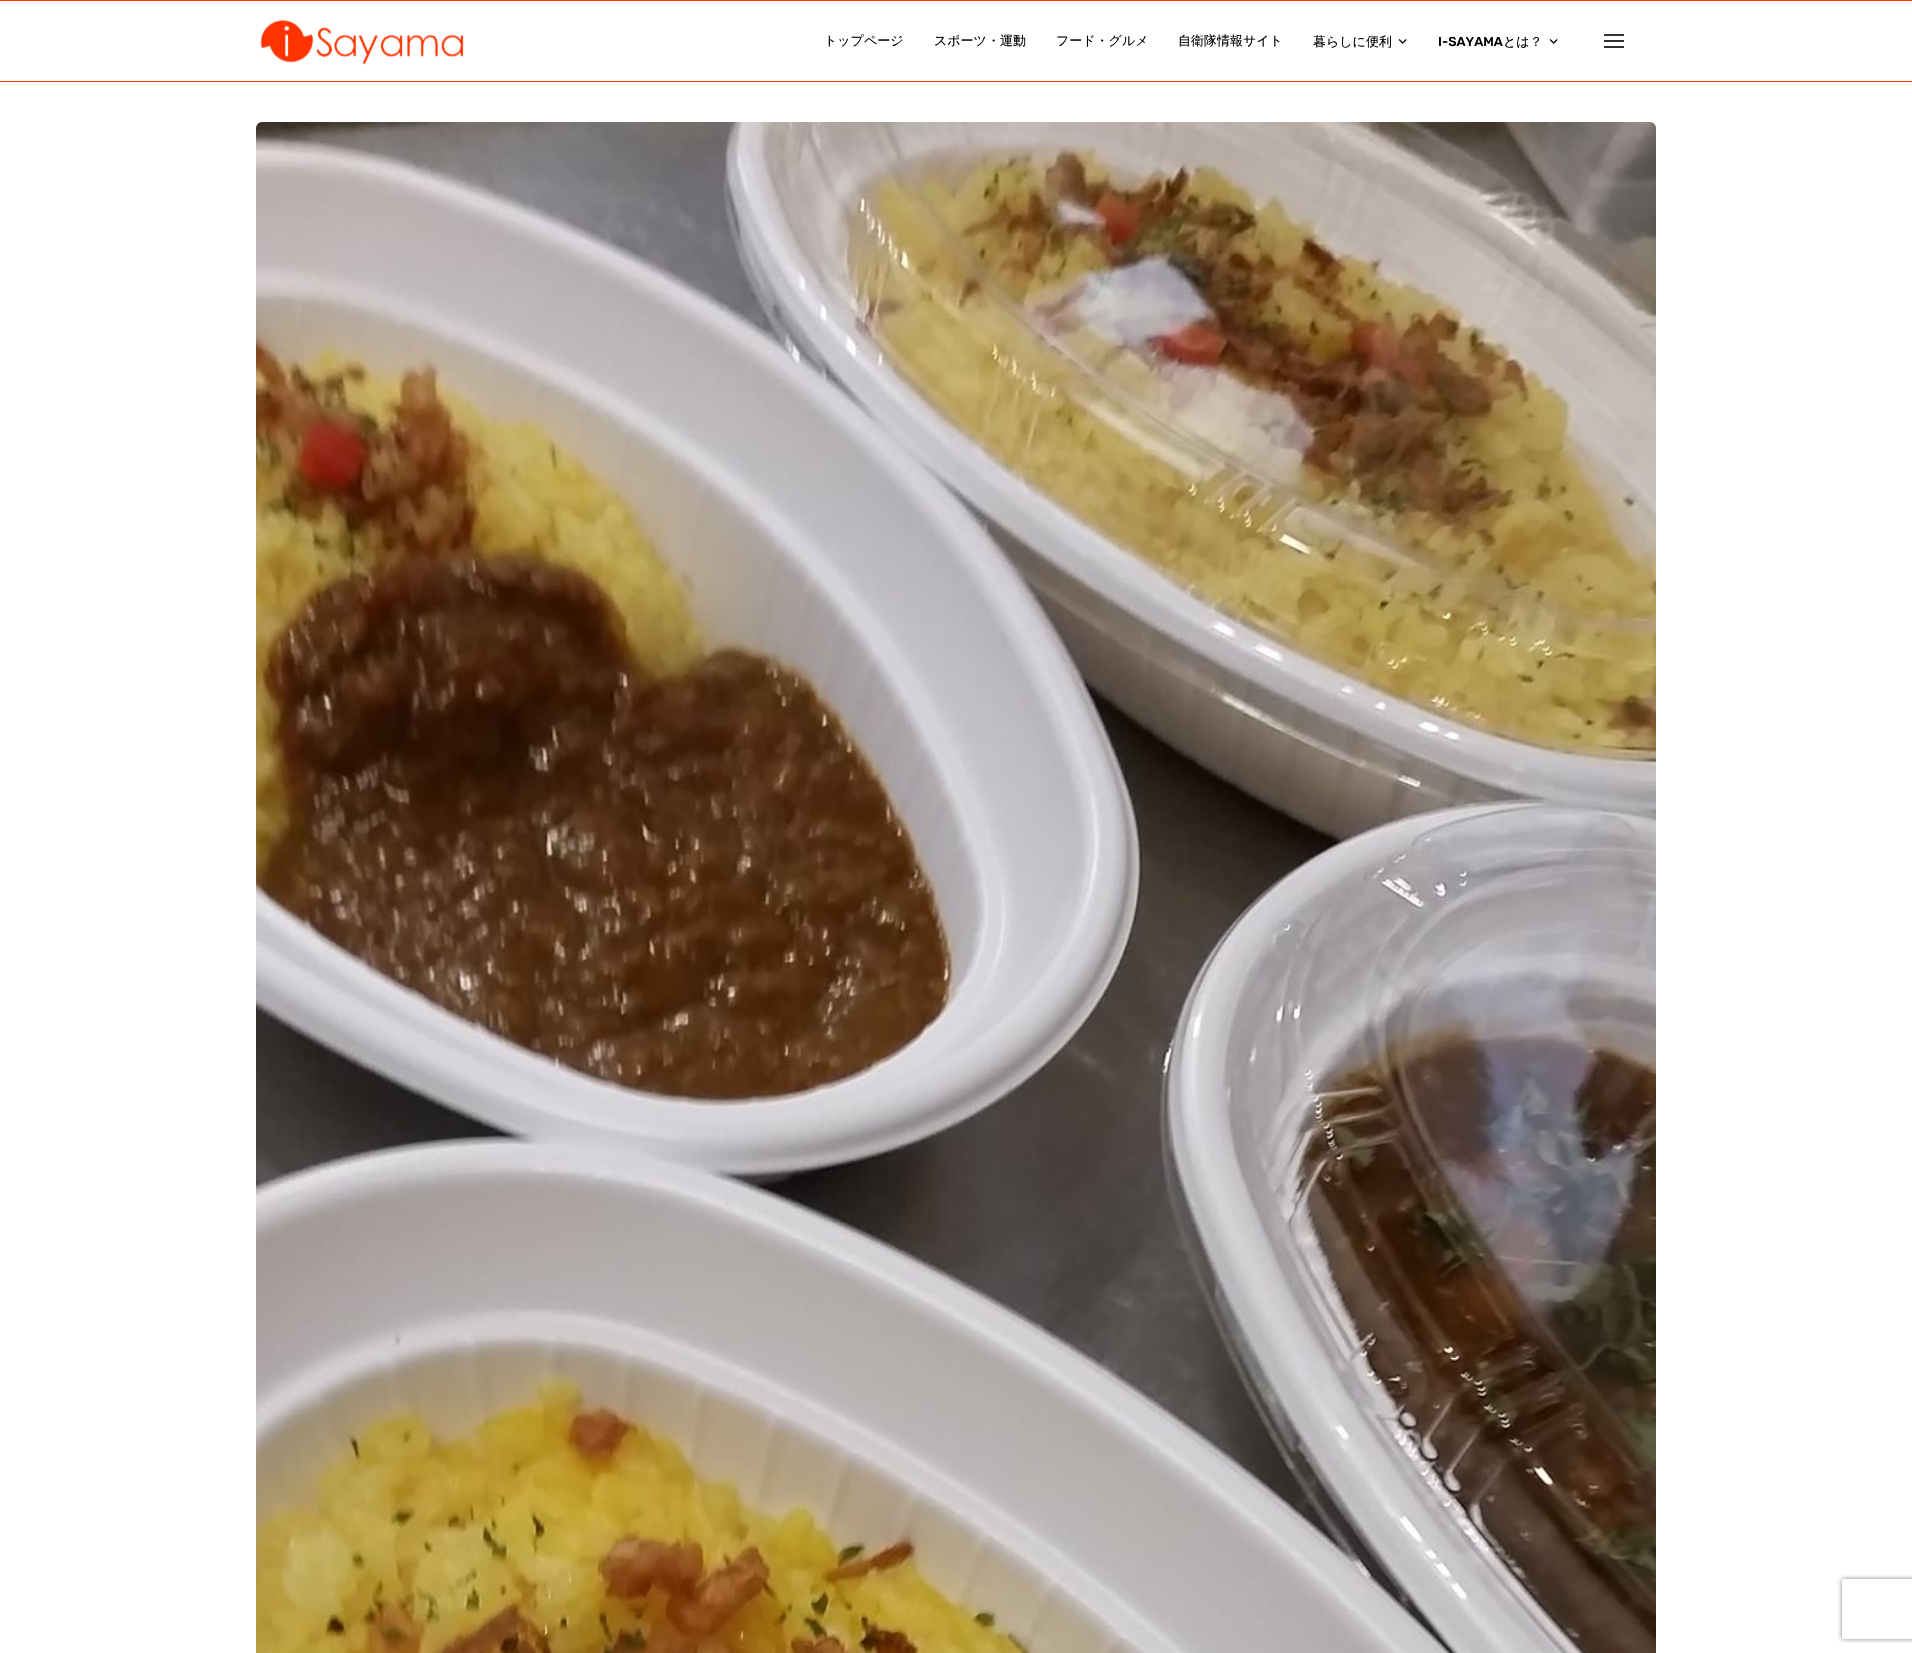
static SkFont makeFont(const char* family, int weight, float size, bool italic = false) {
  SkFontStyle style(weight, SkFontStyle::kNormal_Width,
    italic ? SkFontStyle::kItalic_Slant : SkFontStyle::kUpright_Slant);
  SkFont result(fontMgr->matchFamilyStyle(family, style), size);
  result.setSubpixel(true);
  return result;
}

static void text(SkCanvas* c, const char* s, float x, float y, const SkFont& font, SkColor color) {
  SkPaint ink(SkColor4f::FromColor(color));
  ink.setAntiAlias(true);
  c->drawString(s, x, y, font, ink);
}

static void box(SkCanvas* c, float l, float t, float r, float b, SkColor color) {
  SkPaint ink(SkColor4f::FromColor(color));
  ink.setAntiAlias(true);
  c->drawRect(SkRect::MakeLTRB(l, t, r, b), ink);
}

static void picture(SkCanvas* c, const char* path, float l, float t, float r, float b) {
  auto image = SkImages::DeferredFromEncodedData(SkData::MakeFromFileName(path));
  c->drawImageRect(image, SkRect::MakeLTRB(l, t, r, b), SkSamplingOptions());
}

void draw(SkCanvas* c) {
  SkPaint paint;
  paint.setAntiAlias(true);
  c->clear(0xffffffff);
  box(c, 0, 0, 1912, 1, 0xffff3300);
  box(c, 0, 81, 1912, 82, 0xffff3300);
  picture(c, "img_01.png", 260, 19, 464, 65);
  SkFont face1 = makeFont("WenQuanYi Zen Hei", 500, 13);
  text(c, "トップページ", 824, 45, face1, 0xff000000);
  text(c, "スポーツ・運動", 934, 45, face1, 0xff000000);
  text(c, "フード・グルメ", 1056, 45, face1, 0xff000000);
  text(c, "自衛隊情報サイト", 1178, 45, face1, 0xff000000);
  text(c, "暮らしに便利", 1313, 46, face1, 0xff000000);
  picture(c, "img_02.png", 1398, 39, 1407, 44);
  SkFont face2 = makeFont("Rubik", 500, 13);
  text(c, "I-SAYAMA", 1438, 46, face2, 0xff000000);
  text(c, "とは？", 1503, 46, face1, 0xff000000);
  picture(c, "img_03.png", 1549, 39, 1558, 44);
  box(c, 1604, 34, 1624, 36, 0xff313131);
  box(c, 1604, 46, 1624, 48, 0xff313131);
  box(c, 1604, 40, 1624, 42, 0xff313131);
  picture(c, "img_04.png", 256, 122, 1656, 1653);
  c->save();
  c->clipPath(SkPathBuilder(SkPathFillType::kEvenOdd).moveTo(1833, 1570).lineTo(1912, 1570).lineTo(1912, 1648).lineTo(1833, 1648).close().moveTo(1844, 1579).lineTo(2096, 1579).cubicTo(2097, 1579, 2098, 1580, 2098, 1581).lineTo(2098, 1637).cubicTo(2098, 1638, 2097, 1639, 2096, 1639).lineTo(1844, 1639).cubicTo(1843, 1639, 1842, 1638, 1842, 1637).lineTo(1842, 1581).cubicTo(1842, 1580, 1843, 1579, 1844, 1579).close().detach(), true);
  paint.setColor(0xff808080);
  paint.setMaskFilter(SkMaskFilter::MakeBlur(kNormal_SkBlurStyle, 2.5f));
  c->drawRoundRect(SkRect::MakeLTRB(1842, 1579, 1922, 1639), 2, 2, paint);
  paint.setMaskFilter(nullptr);
  c->restore();
}
